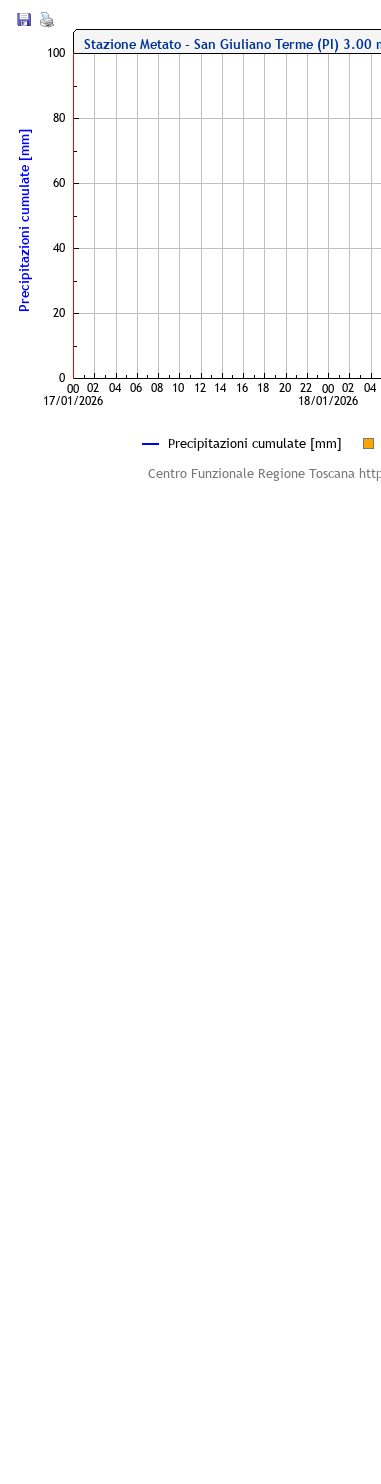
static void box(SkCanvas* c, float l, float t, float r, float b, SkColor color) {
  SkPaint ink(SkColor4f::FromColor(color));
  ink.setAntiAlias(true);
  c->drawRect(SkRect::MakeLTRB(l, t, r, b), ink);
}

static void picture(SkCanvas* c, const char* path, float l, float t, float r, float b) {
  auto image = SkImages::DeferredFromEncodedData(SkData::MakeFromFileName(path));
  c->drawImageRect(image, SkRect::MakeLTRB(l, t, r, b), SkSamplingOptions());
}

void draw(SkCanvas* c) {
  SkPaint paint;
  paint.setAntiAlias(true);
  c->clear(0xffffffff);
  picture(c, "img_01.png", 17, 12, 54, 28);
  picture(c, "img_02.png", 19, 29, 381, 481);
  box(c, 73, 53, 74, 379, 0xffff0000);
}
